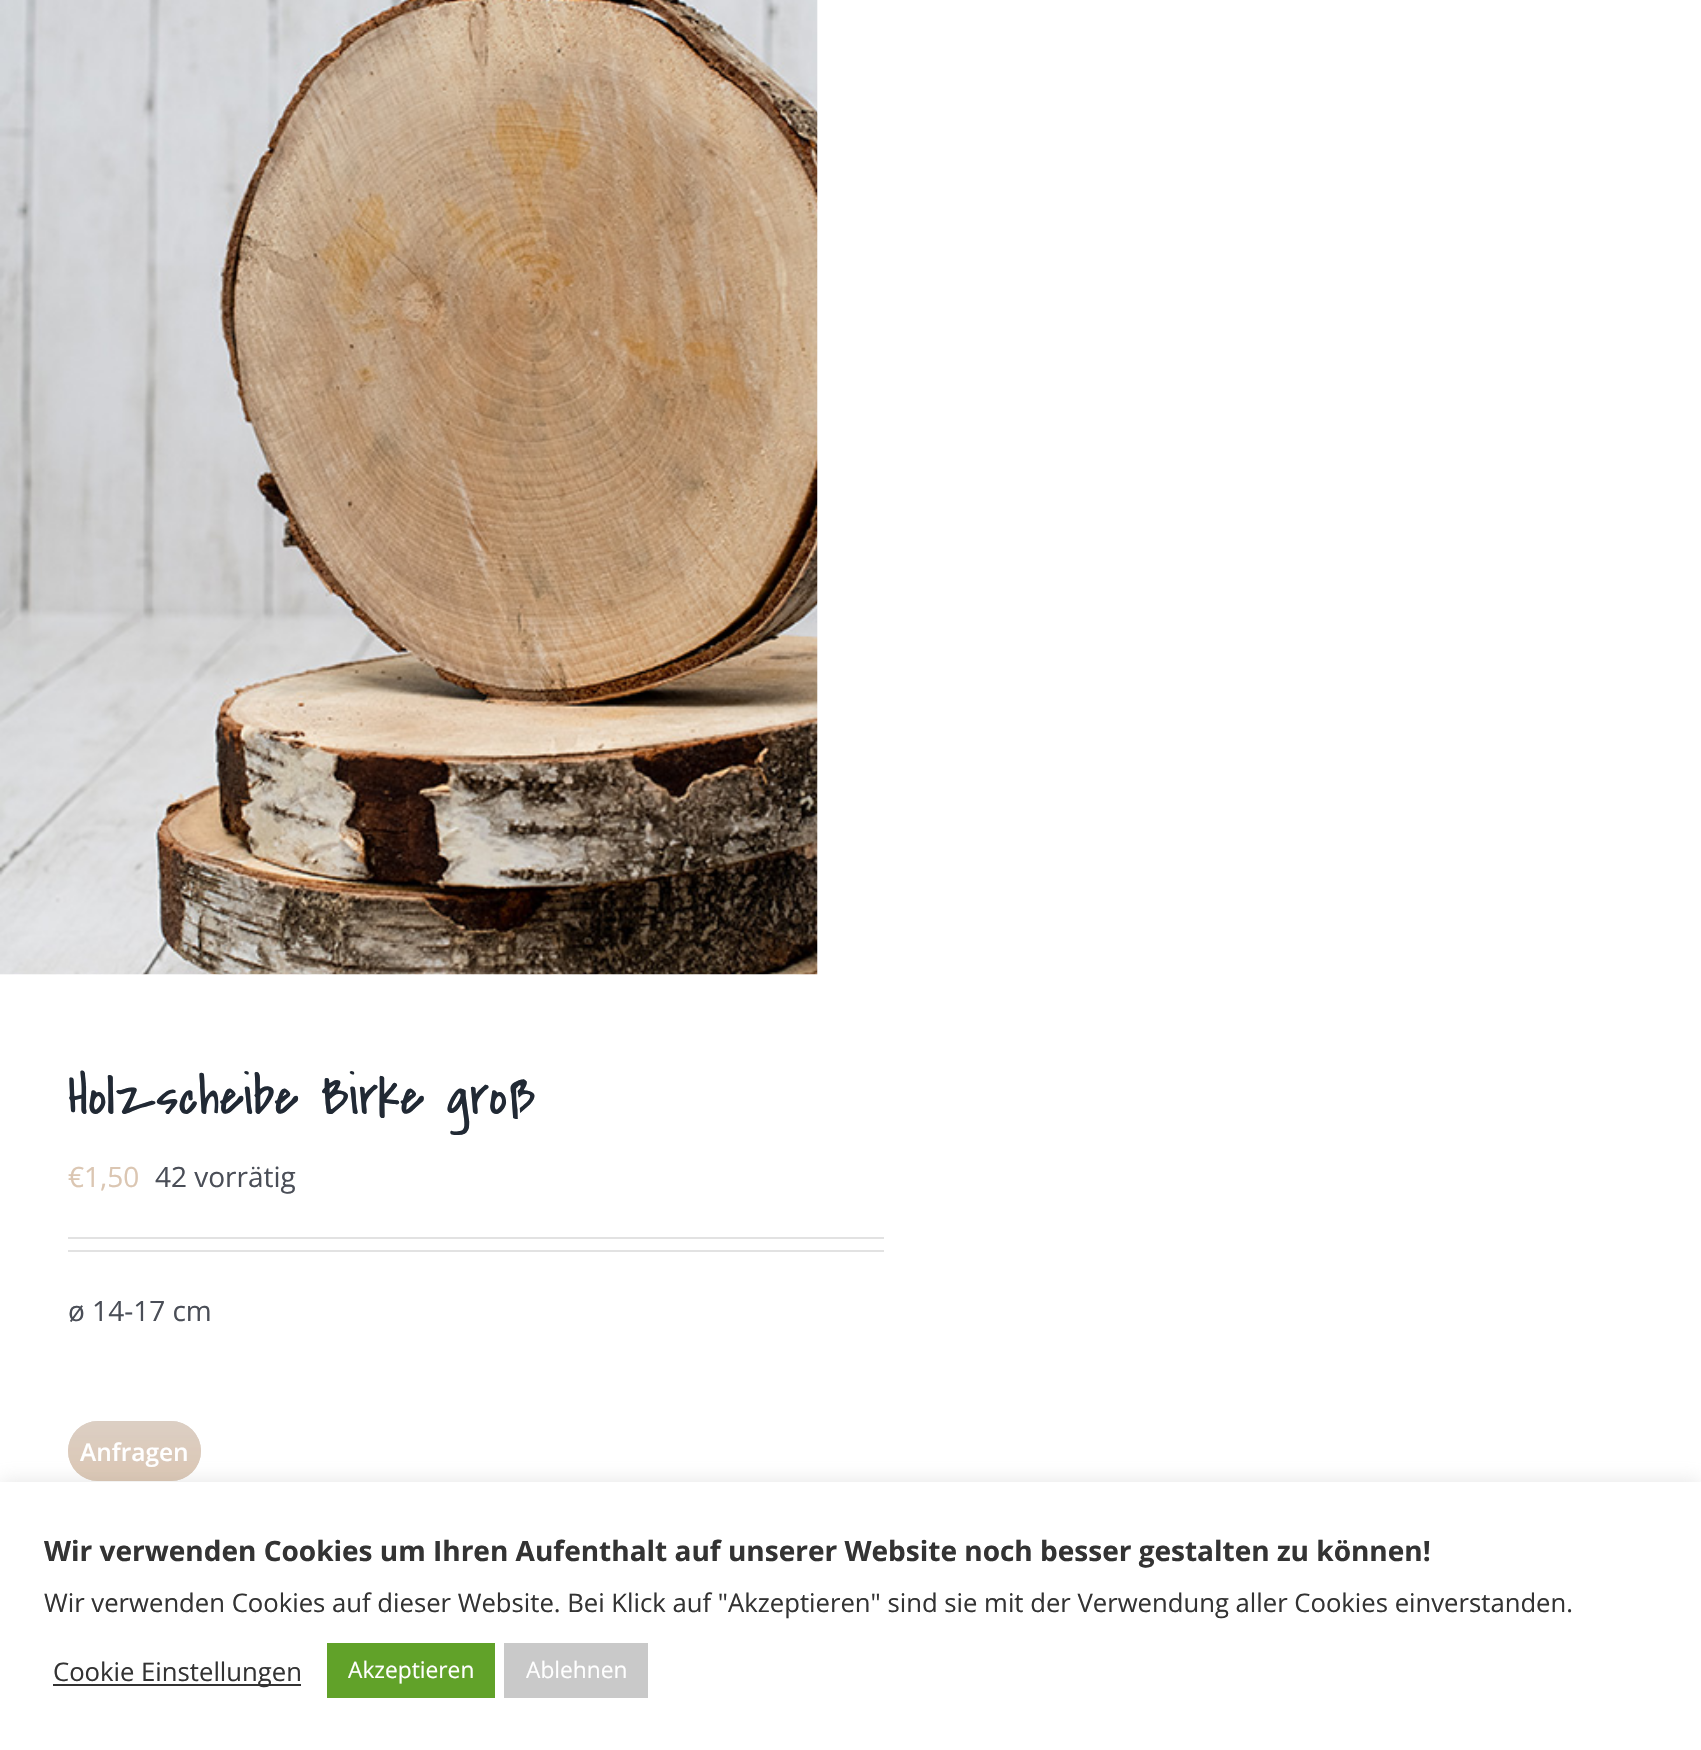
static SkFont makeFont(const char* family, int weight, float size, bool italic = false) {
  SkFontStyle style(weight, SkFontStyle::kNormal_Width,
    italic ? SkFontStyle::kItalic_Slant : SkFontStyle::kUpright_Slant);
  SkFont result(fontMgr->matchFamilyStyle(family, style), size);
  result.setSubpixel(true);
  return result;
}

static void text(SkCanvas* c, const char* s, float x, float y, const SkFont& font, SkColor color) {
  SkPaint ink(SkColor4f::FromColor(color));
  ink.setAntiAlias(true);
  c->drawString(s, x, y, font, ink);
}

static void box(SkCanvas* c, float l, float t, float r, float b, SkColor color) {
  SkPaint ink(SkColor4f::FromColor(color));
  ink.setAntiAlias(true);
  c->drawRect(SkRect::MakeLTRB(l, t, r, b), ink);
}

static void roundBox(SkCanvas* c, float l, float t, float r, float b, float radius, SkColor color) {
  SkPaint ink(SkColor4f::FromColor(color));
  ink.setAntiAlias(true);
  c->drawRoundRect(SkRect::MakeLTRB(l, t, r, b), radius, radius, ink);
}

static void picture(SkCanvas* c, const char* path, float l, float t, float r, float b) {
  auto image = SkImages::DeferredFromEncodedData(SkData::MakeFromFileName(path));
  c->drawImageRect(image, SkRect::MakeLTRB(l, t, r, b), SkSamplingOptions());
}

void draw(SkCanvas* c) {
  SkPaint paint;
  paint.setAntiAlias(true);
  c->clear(0xffffffff);
  picture(c, "img_01.png", 0, 0, 818, 975);
  picture(c, "img_02.png", 0, 0, 818, 975);
  SkFont face1 = makeFont("Covered By Your Grace", 400, 56);
  text(c, "Holzscheibe Birke groß", 68, 1114, face1, 0xff212934);
  SkFont face2 = makeFont("Open Sans", 400, 28);
  text(c, "€1,50", 68, 1187, face2, 0xffdbc6b2);
  text(c, "42 vorrätig", 155, 1187, face2, 0xff4a4e57);
  box(c, 68, 1237, 884, 1239, 0xffe2e2e2);
  box(c, 68, 1250, 884, 1252, 0xffe2e2e2);
  text(c, "ø 14-17 cm", 68, 1321, face2, 0xff4a4e57);
  roundBox(c, 68, 1421, 201, 1481, 30, 0xffded2c8);
  {
    const SkColor colors[] = {0xe8dbcec3, 0xffdbc6b2};
    const float stops[] = {0, 1};
    const SkPoint ends[] = {{135, 1421}, {135, 1481}};
    paint.setShader(SkGradientShader::MakeLinear(ends, colors, stops, 2, SkTileMode::kClamp));
    paint.setAlpha(255);
  }
  c->drawRoundRect(SkRect::MakeLTRB(68, 1421, 201, 1481), 30, 30, paint);
  SkFont face3 = makeFont("Open Sans", 600, 24.5f);
  text(c, "Anfragen", 80, 1461, face3, 0xffffffff);
  paint.setShader(nullptr);
  paint.setColor(0x4dacabab);
  paint.setMaskFilter(SkMaskFilter::MakeBlur(kNormal_SkBlurStyle, 9));
  c->drawRect(SkRect::MakeLTRB(0, 1481, 1701, 1748), paint);
  paint.setMaskFilter(nullptr);
  box(c, 0, 1482, 1701, 1750, 0xffffffff);
  SkFont face4 = makeFont("Open Sans", 700, 28);
  text(c, "Wir verwenden Cookies um Ihren Aufenthalt auf unserer Website noch besser gestalten zu können!", 44, 1561, face4, 0xff333333);
  SkFont face5 = makeFont("Open Sans", 400, 25.67f);
  text(c, "Wir verwenden Cookies auf dieser Website. Bei Klick auf \"Akzeptieren\" sind sie mit der Verwendung aller Cookies einverstanden.", 44, 1612, face5, 0xff333333);
  box(c, 53, 1684, 301, 1686, 0xff333333);
  text(c, "Cookie Einstellungen", 53, 1681, face5, 0xff333333);
  box(c, 327, 1643, 495, 1698, 0xff61a229);
  SkFont face6 = makeFont("Open Sans", 400, 22.75f);
  text(c, "Akzeptieren", 348, 1678, face6, 0xffffffff);
  box(c, 504, 1643, 648, 1698, 0xffc9c9c9);
  text(c, "Ablehnen", 526, 1678, face6, 0xffffffff);
}
